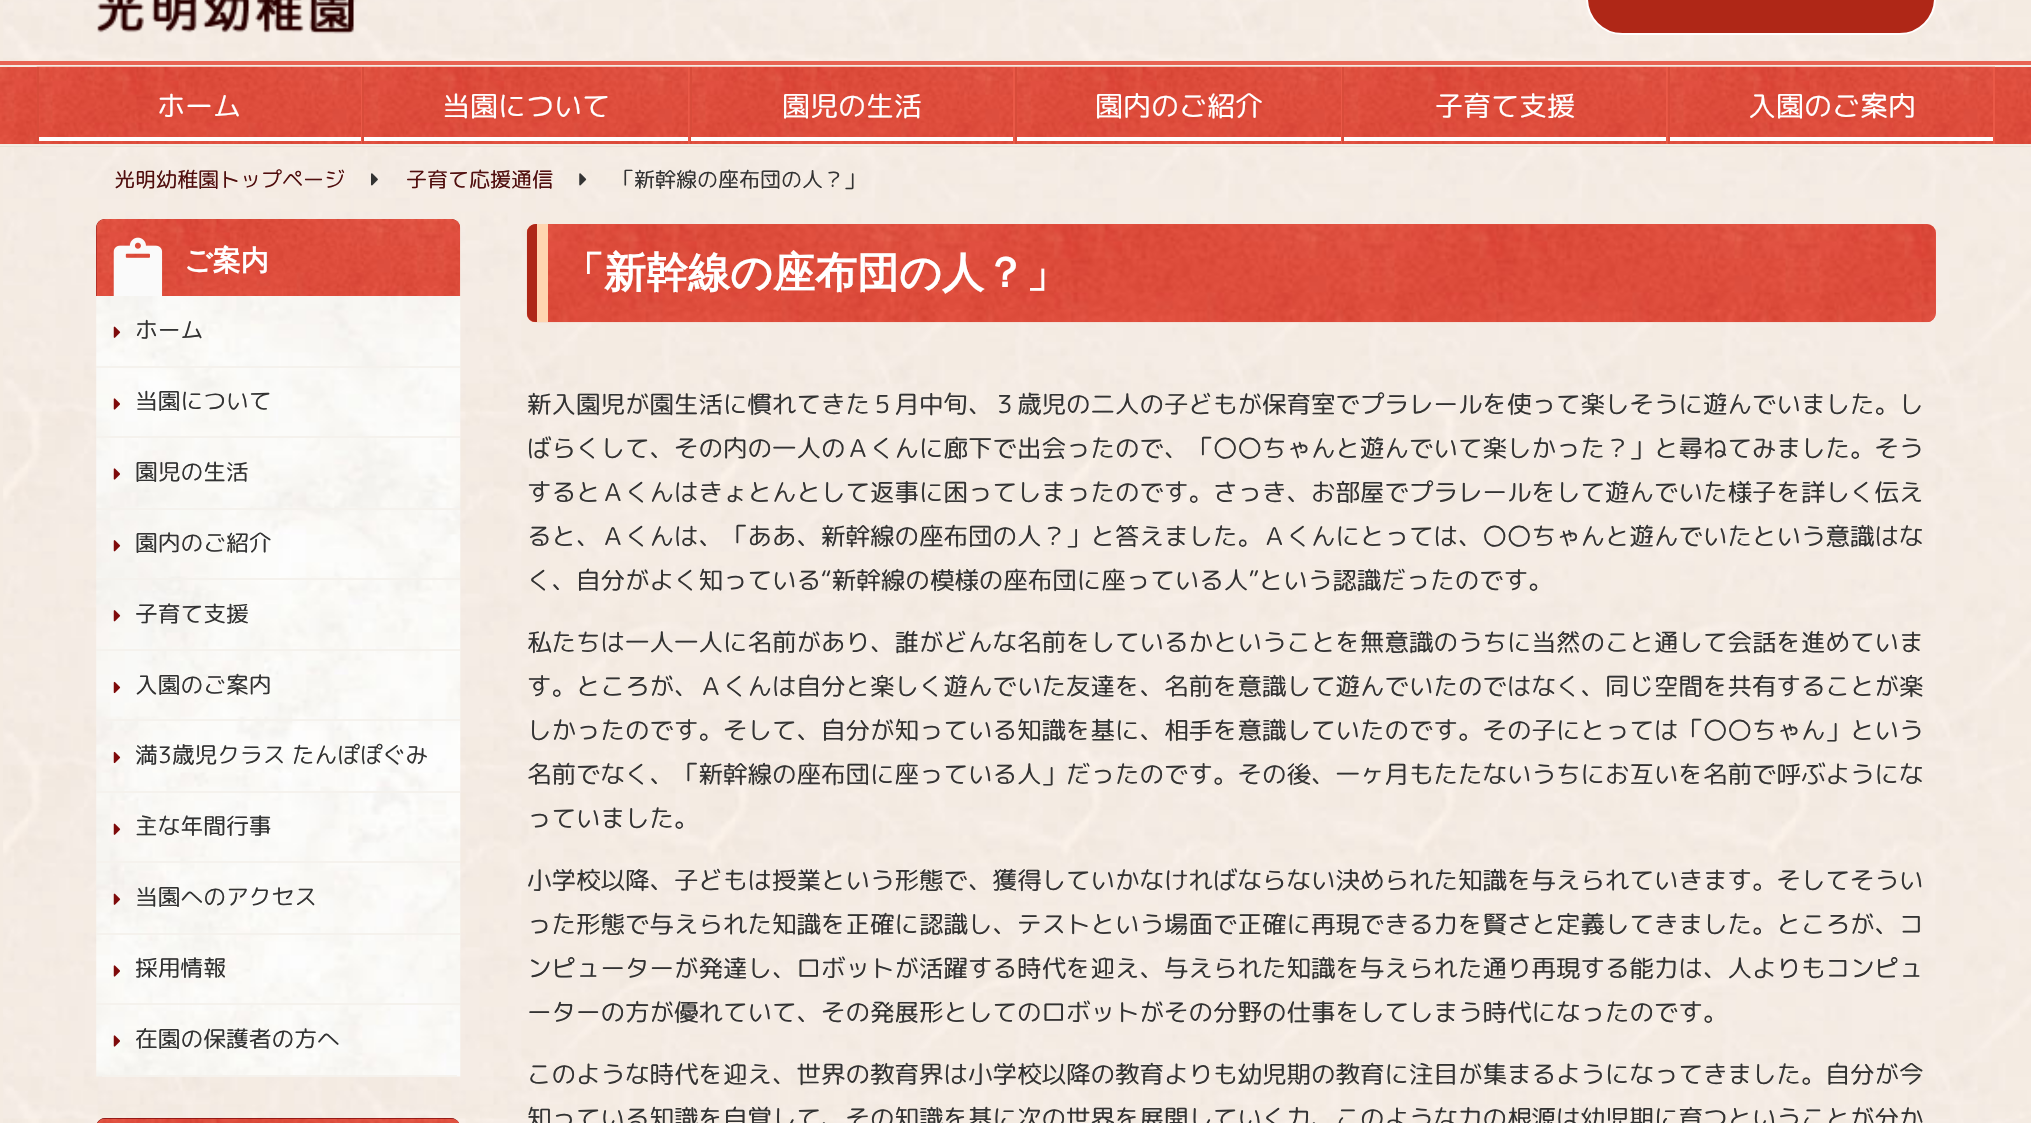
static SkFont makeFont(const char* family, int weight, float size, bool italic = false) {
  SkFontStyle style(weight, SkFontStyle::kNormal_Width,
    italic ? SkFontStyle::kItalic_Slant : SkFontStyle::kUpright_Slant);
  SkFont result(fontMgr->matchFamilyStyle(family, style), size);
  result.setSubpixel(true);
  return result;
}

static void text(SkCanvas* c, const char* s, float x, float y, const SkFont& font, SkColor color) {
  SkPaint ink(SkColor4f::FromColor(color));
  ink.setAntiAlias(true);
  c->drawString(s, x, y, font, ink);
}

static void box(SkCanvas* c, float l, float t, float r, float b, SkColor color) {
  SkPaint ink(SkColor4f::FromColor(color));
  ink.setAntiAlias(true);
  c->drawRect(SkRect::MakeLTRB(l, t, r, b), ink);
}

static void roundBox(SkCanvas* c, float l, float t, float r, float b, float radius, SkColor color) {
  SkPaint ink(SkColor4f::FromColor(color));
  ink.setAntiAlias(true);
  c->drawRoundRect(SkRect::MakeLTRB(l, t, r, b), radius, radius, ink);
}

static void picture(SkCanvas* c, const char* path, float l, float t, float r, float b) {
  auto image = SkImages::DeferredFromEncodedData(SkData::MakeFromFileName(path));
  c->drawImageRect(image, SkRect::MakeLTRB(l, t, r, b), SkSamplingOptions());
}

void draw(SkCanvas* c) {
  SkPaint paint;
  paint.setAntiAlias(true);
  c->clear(0xfff4ebe2);
  picture(c, "img_01.png", 3, 0, 2031, 1123);
  picture(c, "img_02.png", 97, 0, 356, 34);
  paint.setColor(0xffaf2717);
  c->drawRoundRect(SkRect::MakeLTRB(1587, -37, 1935, 34), 35.5f, 35.5f, paint);
  paint.setStyle(SkPaint::kStroke_Style);
  paint.setStrokeWidth(2);
  paint.setColor(0xffffffff);
  c->drawRoundRect(SkRect::MakeLTRB(1587, -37, 1935, 34), 35.5f, 35.5f, paint);
  picture(c, "img_03.png", 0, 67, 2031, 144);
  box(c, 0, 61, 2031, 65, 0xffe86353);
  box(c, 0, 144, 2005, 146, 0xfff4ebe2);
  box(c, 11, 65, 2002, 67, 0xfff4ebe2);
  picture(c, "img_04.png", 36, 66, 363, 144);
  box(c, 361, 67, 362, 144, 0xffea5947);
  box(c, 37, 67, 39, 144, 0xffd84c3a);
  SkFont face1 = makeFont("Rounded Mplus 1c", 400, 28);
  text(c, "ホーム", 157, 116, face1, 0xffffffff);
  box(c, 39, 137, 361, 141, 0xffffffff);
  picture(c, "img_05.png", 362, 66, 690, 144);
  box(c, 688, 67, 690, 144, 0xffea5947);
  box(c, 362, 67, 364, 144, 0xffd84c3a);
  text(c, "当園について", 442, 116, face1, 0xffffffff);
  box(c, 364, 137, 688, 141, 0xffffffff);
  picture(c, "img_06.png", 689, 66, 1015, 144);
  box(c, 1013, 67, 1015, 144, 0xffea5947);
  box(c, 690, 67, 692, 144, 0xffd84c3a);
  text(c, "園児の生活", 782, 116, face1, 0xffffffff);
  box(c, 691, 137, 1013, 141, 0xffffffff);
  picture(c, "img_07.png", 1015, 66, 1343, 144);
  box(c, 1341, 67, 1342, 144, 0xffea5947);
  box(c, 1015, 67, 1017, 144, 0xffd84c3a);
  text(c, "園内のご紹介", 1095, 116, face1, 0xffffffff);
  box(c, 1017, 137, 1341, 141, 0xffffffff);
  picture(c, "img_08.png", 1342, 66, 1668, 144);
  box(c, 1666, 67, 1668, 144, 0xffea5947);
  box(c, 1342, 67, 1344, 144, 0xffd84c3a);
  text(c, "子育て支援", 1435, 116, face1, 0xffffffff);
  box(c, 1344, 137, 1666, 141, 0xffffffff);
  picture(c, "img_09.png", 1667, 66, 1995, 144);
  box(c, 1993, 67, 1995, 144, 0xffea5947);
  box(c, 1668, 67, 1670, 144, 0xffd84c3a);
  text(c, "入園のご案内", 1748, 116, face1, 0xffffffff);
  box(c, 1670, 137, 1993, 141, 0xffffffff);
  box(c, 0, 146, 2031, 147, 0xffe8e2d6);
  SkFont face2 = makeFont("Rounded Mplus 1c", 400, 21);
  text(c, "光明幼稚園トップページ", 114, 187, face2, 0xff500e0e);
  picture(c, "img_10.png", 371, 173, 378, 186);
  text(c, "子育て応援通信", 406, 187, face2, 0xff500e0e);
  picture(c, "img_11.png", 579, 173, 587, 186);
  text(c, "「新幹線の座布団の人？」", 613, 187, face2, 0xff333333);
  paint.setStyle(SkPaint::kFill_Style);
  paint.setColor(0xff7e0a0a);
  c->drawPath(SkPathBuilder().moveTo(105, 219).lineTo(451, 219).cubicTo(456, 219, 460, 223, 460, 228).lineTo(460, 296).lineTo(96, 296).lineTo(96, 228).cubicTo(96, 223, 100, 219, 105, 219).close().detach(), paint);
  picture(c, "img_12.png", 96, 219, 461, 296);
  picture(c, "img_13.png", 113, 237, 163, 296);
  SkFont face3 = makeFont("WenQuanYi Zen Hei", 700, 28);
  text(c, "ご案内", 184, 270, face3, 0xffffffff);
  picture(c, "img_14.png", 96, 296, 461, 1077);
  box(c, 96, 366, 460, 368, 0xfff5f2ed);
  picture(c, "img_15.png", 113, 326, 121, 338);
  SkFont face4 = makeFont("Rounded Mplus 1c", 400, 22.75f);
  text(c, "ホーム", 135, 338, face4, 0xff333333);
  box(c, 96, 436, 460, 438, 0xfff5f2ed);
  picture(c, "img_16.png", 113, 398, 120, 410);
  text(c, "当園について", 135, 409, face4, 0xff333333);
  box(c, 96, 508, 460, 510, 0xfff5f2ed);
  picture(c, "img_17.png", 113, 468, 120, 480);
  text(c, "園児の生活", 135, 480, face4, 0xff333333);
  box(c, 96, 578, 460, 580, 0xfff5f2ed);
  picture(c, "img_18.png", 113, 540, 121, 552);
  text(c, "園内のご紹介", 135, 551, face4, 0xff333333);
  box(c, 96, 649, 460, 651, 0xfff5f2ed);
  picture(c, "img_19.png", 113, 610, 121, 622);
  text(c, "子育て支援", 135, 622, face4, 0xff333333);
  box(c, 106, 719, 460, 721, 0xfff5f2ed);
  picture(c, "img_20.png", 113, 681, 121, 694);
  text(c, "入園のご案内", 135, 693, face4, 0xff333333);
  box(c, 96, 791, 460, 793, 0xfff5f2ed);
  picture(c, "img_21.png", 113, 751, 121, 764);
  text(c, "満3歳児クラス たんぽぽぐみ", 135, 763, face4, 0xff333333);
  box(c, 96, 861, 460, 863, 0xfff5f2ed);
  picture(c, "img_22.png", 113, 823, 121, 835);
  text(c, "主な年間行事", 135, 834, face4, 0xff333333);
  box(c, 96, 933, 460, 935, 0xfff5f2ed);
  picture(c, "img_23.png", 113, 893, 121, 905);
  text(c, "当園へのアクセス", 135, 905, face4, 0xff333333);
  box(c, 96, 1003, 460, 1005, 0xfff5f2ed);
  picture(c, "img_24.png", 113, 965, 120, 977);
  text(c, "採用情報", 135, 976, face4, 0xff333333);
  box(c, 102, 1075, 457, 1077, 0xfff5f2ed);
  picture(c, "img_25.png", 113, 1035, 120, 1047);
  text(c, "在園の保護者の方へ", 135, 1047, face4, 0xff333333);
  c->drawPath(SkPathBuilder().moveTo(105, 1118).lineTo(451, 1118).cubicTo(456, 1118, 460, 1122, 460, 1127).lineTo(460, 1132).lineTo(96, 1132).lineTo(96, 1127).cubicTo(96, 1122, 100, 1118, 105, 1118).close().detach(), paint);
  picture(c, "img_26.png", 97, 1118, 459, 1123);
  roundBox(c, 527, 224, 1936, 322, 9, 0xffe1503f);
  picture(c, "img_27.png", 526, 224, 1936, 323);
  box(c, 537, 224, 548, 322, 0xffffd5b0);
  paint.setColor(0xffaf2717);
  c->drawPath(SkPathBuilder().moveTo(536, 224).cubicTo(531, 224, 527, 228, 527, 233).lineTo(527, 313).cubicTo(527, 318, 531, 322, 536, 322).lineTo(537, 322).lineTo(537, 224).close().detach(), paint);
  SkFont face5 = makeFont("WenQuanYi Zen Hei", 700, 42);
  text(c, "「新幹線の座布団の人？」", 562, 287, face5, 0xffffffff);
  SkFont face6 = makeFont("Rounded Mplus 1c", 400, 24.5f);
  text(c, "新入園児が園生活に慣れてきた５月中旬、３歳児の二人の子どもが保育室でプラレールを使って楽しそうに遊んでいました。し", 527, 413, face6, 0xff333333);
  text(c, "ばらくして、その内の一人のＡくんに廊下で出会ったので、「〇〇ちゃんと遊んでいて楽しかった？」と尋ねてみました。そう", 527, 457, face6, 0xff333333);
  text(c, "するとＡくんはきょとんとして返事に困ってしまったのです。さっき、お部屋でプラレールをして遊んでいた様子を詳しく伝え", 527, 501, face6, 0xff333333);
  text(c, "ると、Ａくんは、「ああ、新幹線の座布団の人？」と答えました。Ａくんにとっては、〇〇ちゃんと遊んでいたという意識はな", 527, 545, face6, 0xff333333);
  text(c, "く、自分がよく知っている“新幹線の模様の座布団に座っている人”という認識だったのです。", 527, 589, face6, 0xff333333);
  text(c, "私たちは一人一人に名前があり、誰がどんな名前をしているかということを無意識のうちに当然のこと通して会話を進めていま", 527, 651, face6, 0xff333333);
  text(c, "す。ところが、Ａくんは自分と楽しく遊んでいた友達を、名前を意識して遊んでいたのではなく、同じ空間を共有することが楽", 527, 695, face6, 0xff333333);
  text(c, "しかったのです。そして、自分が知っている知識を基に、相手を意識していたのです。その子にとっては「〇〇ちゃん」という", 527, 739, face6, 0xff333333);
  text(c, "名前でなく、「新幹線の座布団に座っている人」だったのです。その後、一ヶ月もたたないうちにお互いを名前で呼ぶようにな", 527, 783, face6, 0xff333333);
  text(c, "っていました。", 527, 827, face6, 0xff333333);
  text(c, "小学校以降、子どもは授業という形態で、獲得していかなければならない決められた知識を与えられていきます。そしてそうい", 527, 889, face6, 0xff333333);
  text(c, "った形態で与えられた知識を正確に認識し、テストという場面で正確に再現できる力を賢さと定義してきました。ところが、コ", 527, 933, face6, 0xff333333);
  text(c, "ンピューターが発達し、ロボットが活躍する時代を迎え、与えられた知識を与えられた通り再現する能力は、人よりもコンピュ", 527, 977, face6, 0xff333333);
  text(c, "ーターの方が優れていて、その発展形としてのロボットがその分野の仕事をしてしまう時代になったのです。", 527, 1021, face6, 0xff333333);
  text(c, "このような時代を迎え、世界の教育界は小学校以降の教育よりも幼児期の教育に注目が集まるようになってきました。自分が今", 527, 1083, face6, 0xff333333);
  text(c, "知っている知識を自覚して、その知識を基に次の世界を展開していく力、このような力の根源は幼児期に育つということが分か", 527, 1127, face6, 0xff333333);
}
